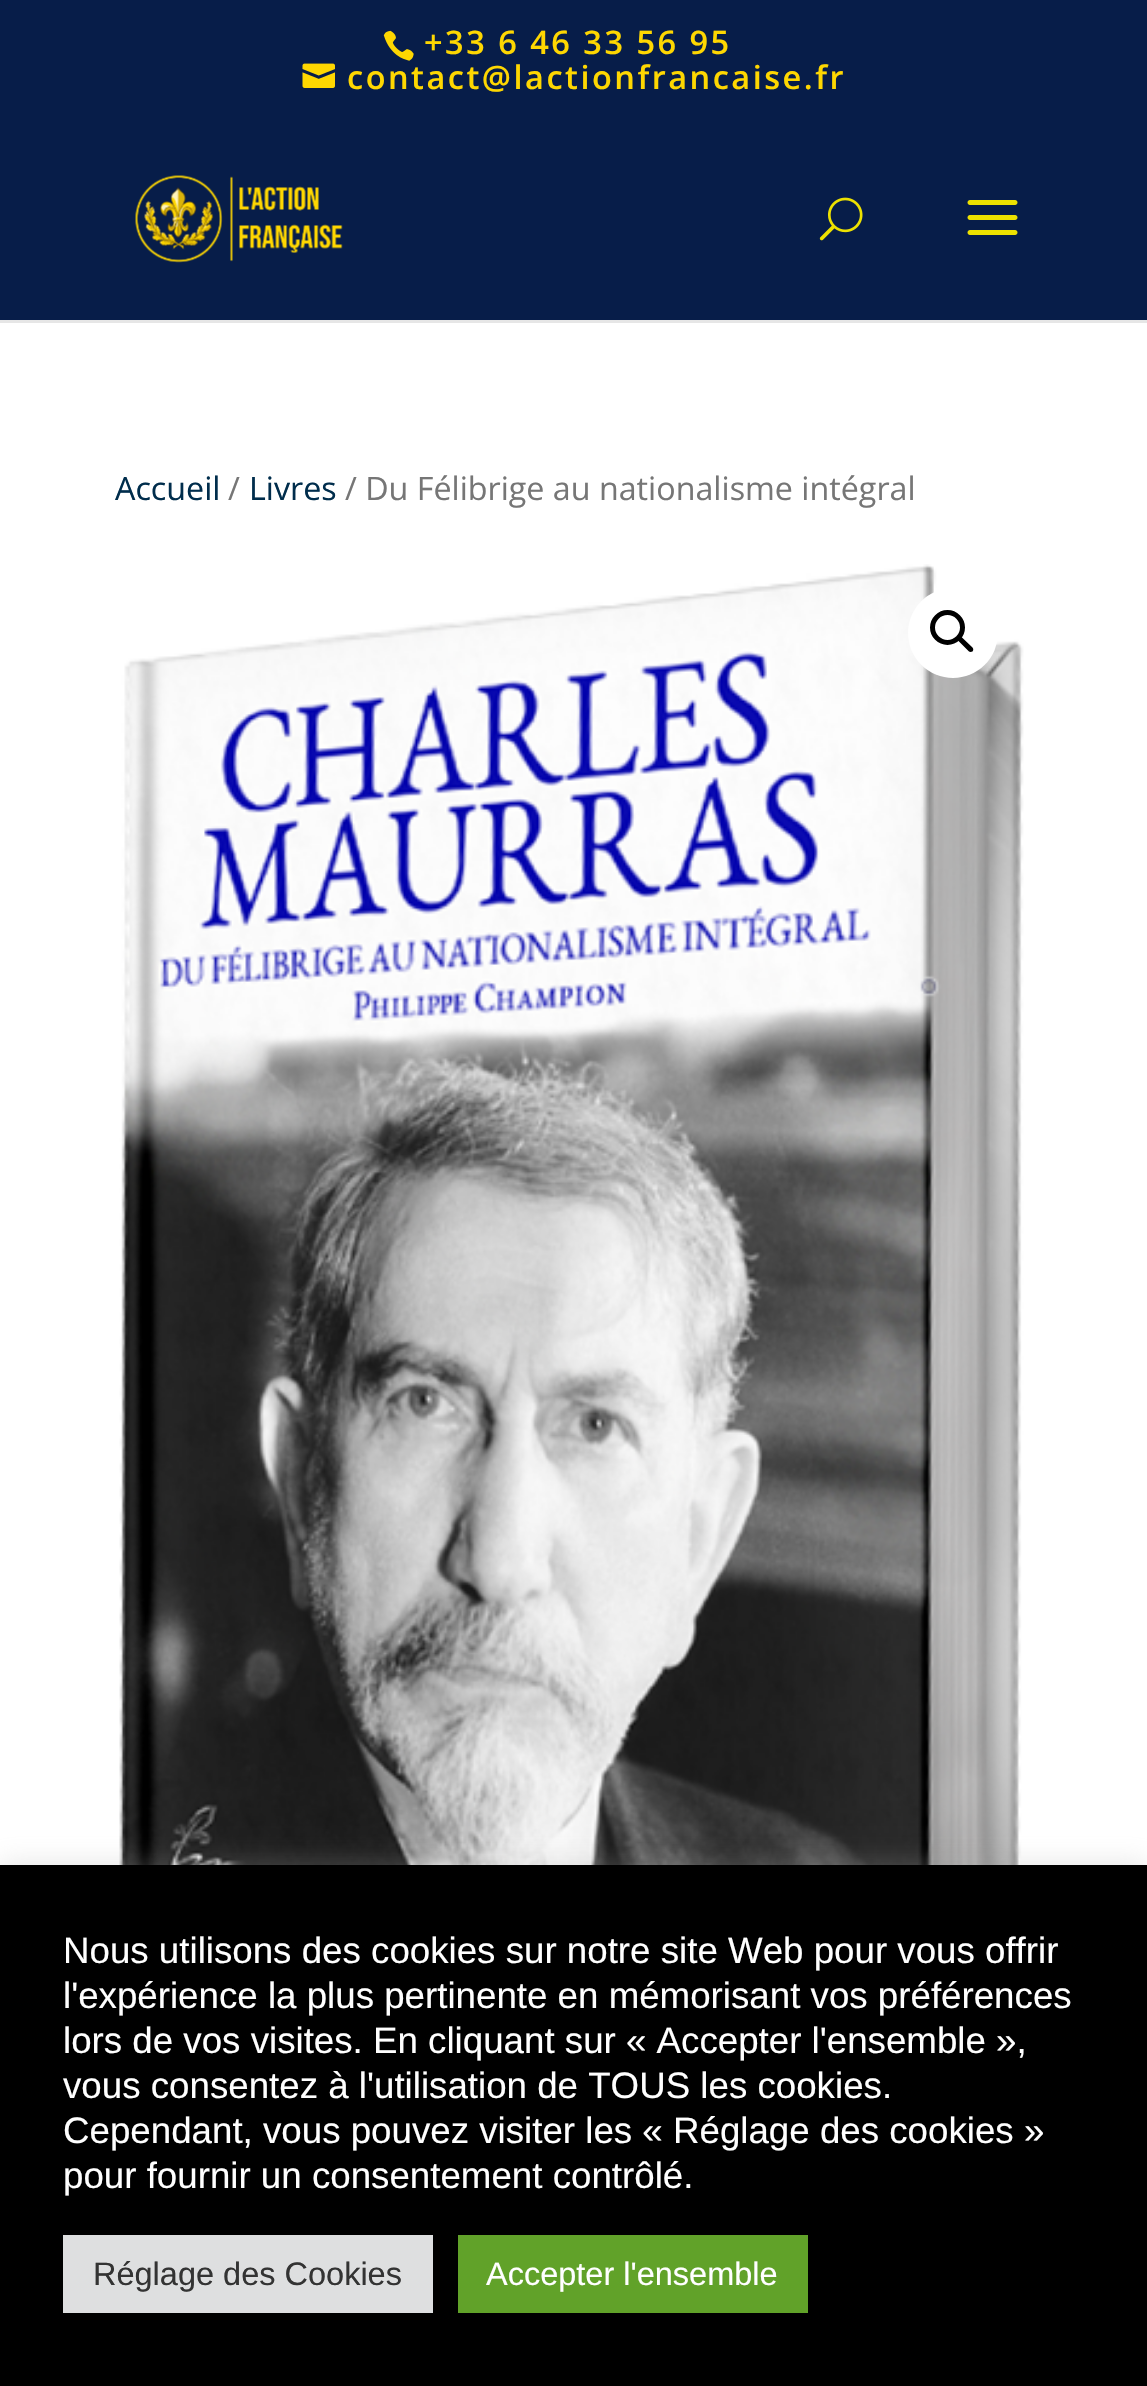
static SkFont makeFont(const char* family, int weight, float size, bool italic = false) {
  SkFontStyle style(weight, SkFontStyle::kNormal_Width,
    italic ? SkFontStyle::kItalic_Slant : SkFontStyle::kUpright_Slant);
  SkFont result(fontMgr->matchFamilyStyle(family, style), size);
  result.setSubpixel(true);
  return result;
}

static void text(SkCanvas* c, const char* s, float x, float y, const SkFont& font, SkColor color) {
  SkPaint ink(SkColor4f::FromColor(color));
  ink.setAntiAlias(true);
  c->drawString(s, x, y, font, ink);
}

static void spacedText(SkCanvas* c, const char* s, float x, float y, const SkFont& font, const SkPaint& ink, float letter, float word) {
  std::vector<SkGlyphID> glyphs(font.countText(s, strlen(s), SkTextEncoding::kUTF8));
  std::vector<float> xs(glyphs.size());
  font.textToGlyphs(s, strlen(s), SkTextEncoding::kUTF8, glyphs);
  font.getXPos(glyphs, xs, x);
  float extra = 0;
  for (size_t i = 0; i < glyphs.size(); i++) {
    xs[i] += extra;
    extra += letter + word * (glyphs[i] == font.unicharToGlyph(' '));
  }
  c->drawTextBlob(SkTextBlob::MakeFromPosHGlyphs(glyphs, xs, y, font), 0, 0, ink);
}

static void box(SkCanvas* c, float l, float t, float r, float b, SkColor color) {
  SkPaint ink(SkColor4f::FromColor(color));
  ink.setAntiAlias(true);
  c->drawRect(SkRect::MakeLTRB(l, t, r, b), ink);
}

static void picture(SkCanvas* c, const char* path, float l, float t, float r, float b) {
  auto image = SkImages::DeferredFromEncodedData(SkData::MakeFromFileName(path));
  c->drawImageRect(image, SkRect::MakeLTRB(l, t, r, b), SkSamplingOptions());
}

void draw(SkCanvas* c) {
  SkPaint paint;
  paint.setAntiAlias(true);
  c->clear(0xffffffff);
  paint.setColor(0xffe6e6e6);
  c->drawPath(SkPathBuilder().moveTo(0, 320).lineTo(0, 323).lineTo(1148, 323).lineTo(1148, 123).lineTo(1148, 320).close().detach(), paint);
  box(c, 0, 0, 1147, 320, 0xff071d49);
  picture(c, "img_01.png", 135, 175, 343, 263);
  picture(c, "img_02.png", 819, 197, 863, 241);
  picture(c, "img_03.png", 967, 200, 1018, 235);
  picture(c, "img_04.png", 383, 30, 414, 61);
  SkFont face1 = makeFont("Open Sans", 600, 32.5f);
  paint.setColor(0xfffed701);
  spacedText(c, "+33 6 46 33 56 95", 424, 54, face1, paint, 2.5f, 0);
  picture(c, "img_05.png", 302, 63, 335, 88);
  spacedText(c, "contact@lactionfrancaise.fr", 347, 89, face1, paint, 2.5f, 0);
  SkFont face2 = makeFont("Open Sans", 400, 32.25f);
  text(c, "Accueil", 115, 500, face2, 0xff002d4c);
  text(c, "/", 228, 500, face2, 0xff767676);
  text(c, "Livres", 249, 500, face2, 0xff002d4c);
  text(c, "/ Du Félibrige au nationalisme intégral", 345, 500, face2, 0xff767676);
  picture(c, "img_06.png", 119, 564, 1024, 1865);
  paint.setColor(0xffffffff);
  c->drawCircle(953, 633, 45, paint);
  paint.setStyle(SkPaint::kStroke_Style);
  paint.setStrokeWidth(5);
  paint.setColor(0xff000000);
  c->drawCircle(947.5f, 627.5f, 15, paint);
  paint.setStyle(SkPaint::kFill_Style);
  c->drawPath(SkPathBuilder().moveTo(958, 637).cubicTo(959, 636, 960.5f, 636, 961.5f, 637).lineTo(972.5f, 647.5f).cubicTo(973.5f, 648.5f, 973.5f, 650.5f, 972.5f, 651.5f).cubicTo(971.5f, 652, 969.5f, 652, 969, 651.5f).lineTo(958, 640.5f).cubicTo(957, 639.5f, 957, 638, 958, 637).close().detach(), paint);
  paint.setColor(0x4dacabab);
  paint.setMaskFilter(SkMaskFilter::MakeBlur(kNormal_SkBlurStyle, 12.5f));
  c->drawRect(SkRect::MakeLTRB(0, 1863, 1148, 2385), paint);
  paint.setMaskFilter(nullptr);
  box(c, 0, 1865, 1147, 2386, 0xff000000);
  SkFont face3 = makeFont("Liberation Sans", 400, 36.7f);
  text(c, "Nous utilisons des cookies sur notre site Web pour vous offrir", 63, 1963, face3, 0xffffffff);
  text(c, "l'expérience la plus pertinente en mémorisant vos préférences", 63, 2008, face3, 0xffffffff);
  text(c, "lors de vos visites. En cliquant sur « Accepter l'ensemble »,", 63, 2053, face3, 0xffffffff);
  text(c, "vous consentez à l'utilisation de TOUS les cookies.", 63, 2098, face3, 0xffffffff);
  text(c, "Cependant, vous pouvez visiter les « Réglage des cookies »", 63, 2143, face3, 0xffffffff);
  text(c, "pour fournir un consentement contrôlé.", 63, 2188, face3, 0xffffffff);
  box(c, 63, 2235, 433, 2313, 0xffdedfe0);
  SkFont face4 = makeFont("Liberation Sans", 400, 32.5f);
  text(c, "Réglage des Cookies", 93, 2285, face4, 0xff333333);
  box(c, 458, 2235, 808, 2313, 0xff61a229);
  text(c, "Accepter l'ensemble", 486, 2285, face4, 0xffffffff);
}
